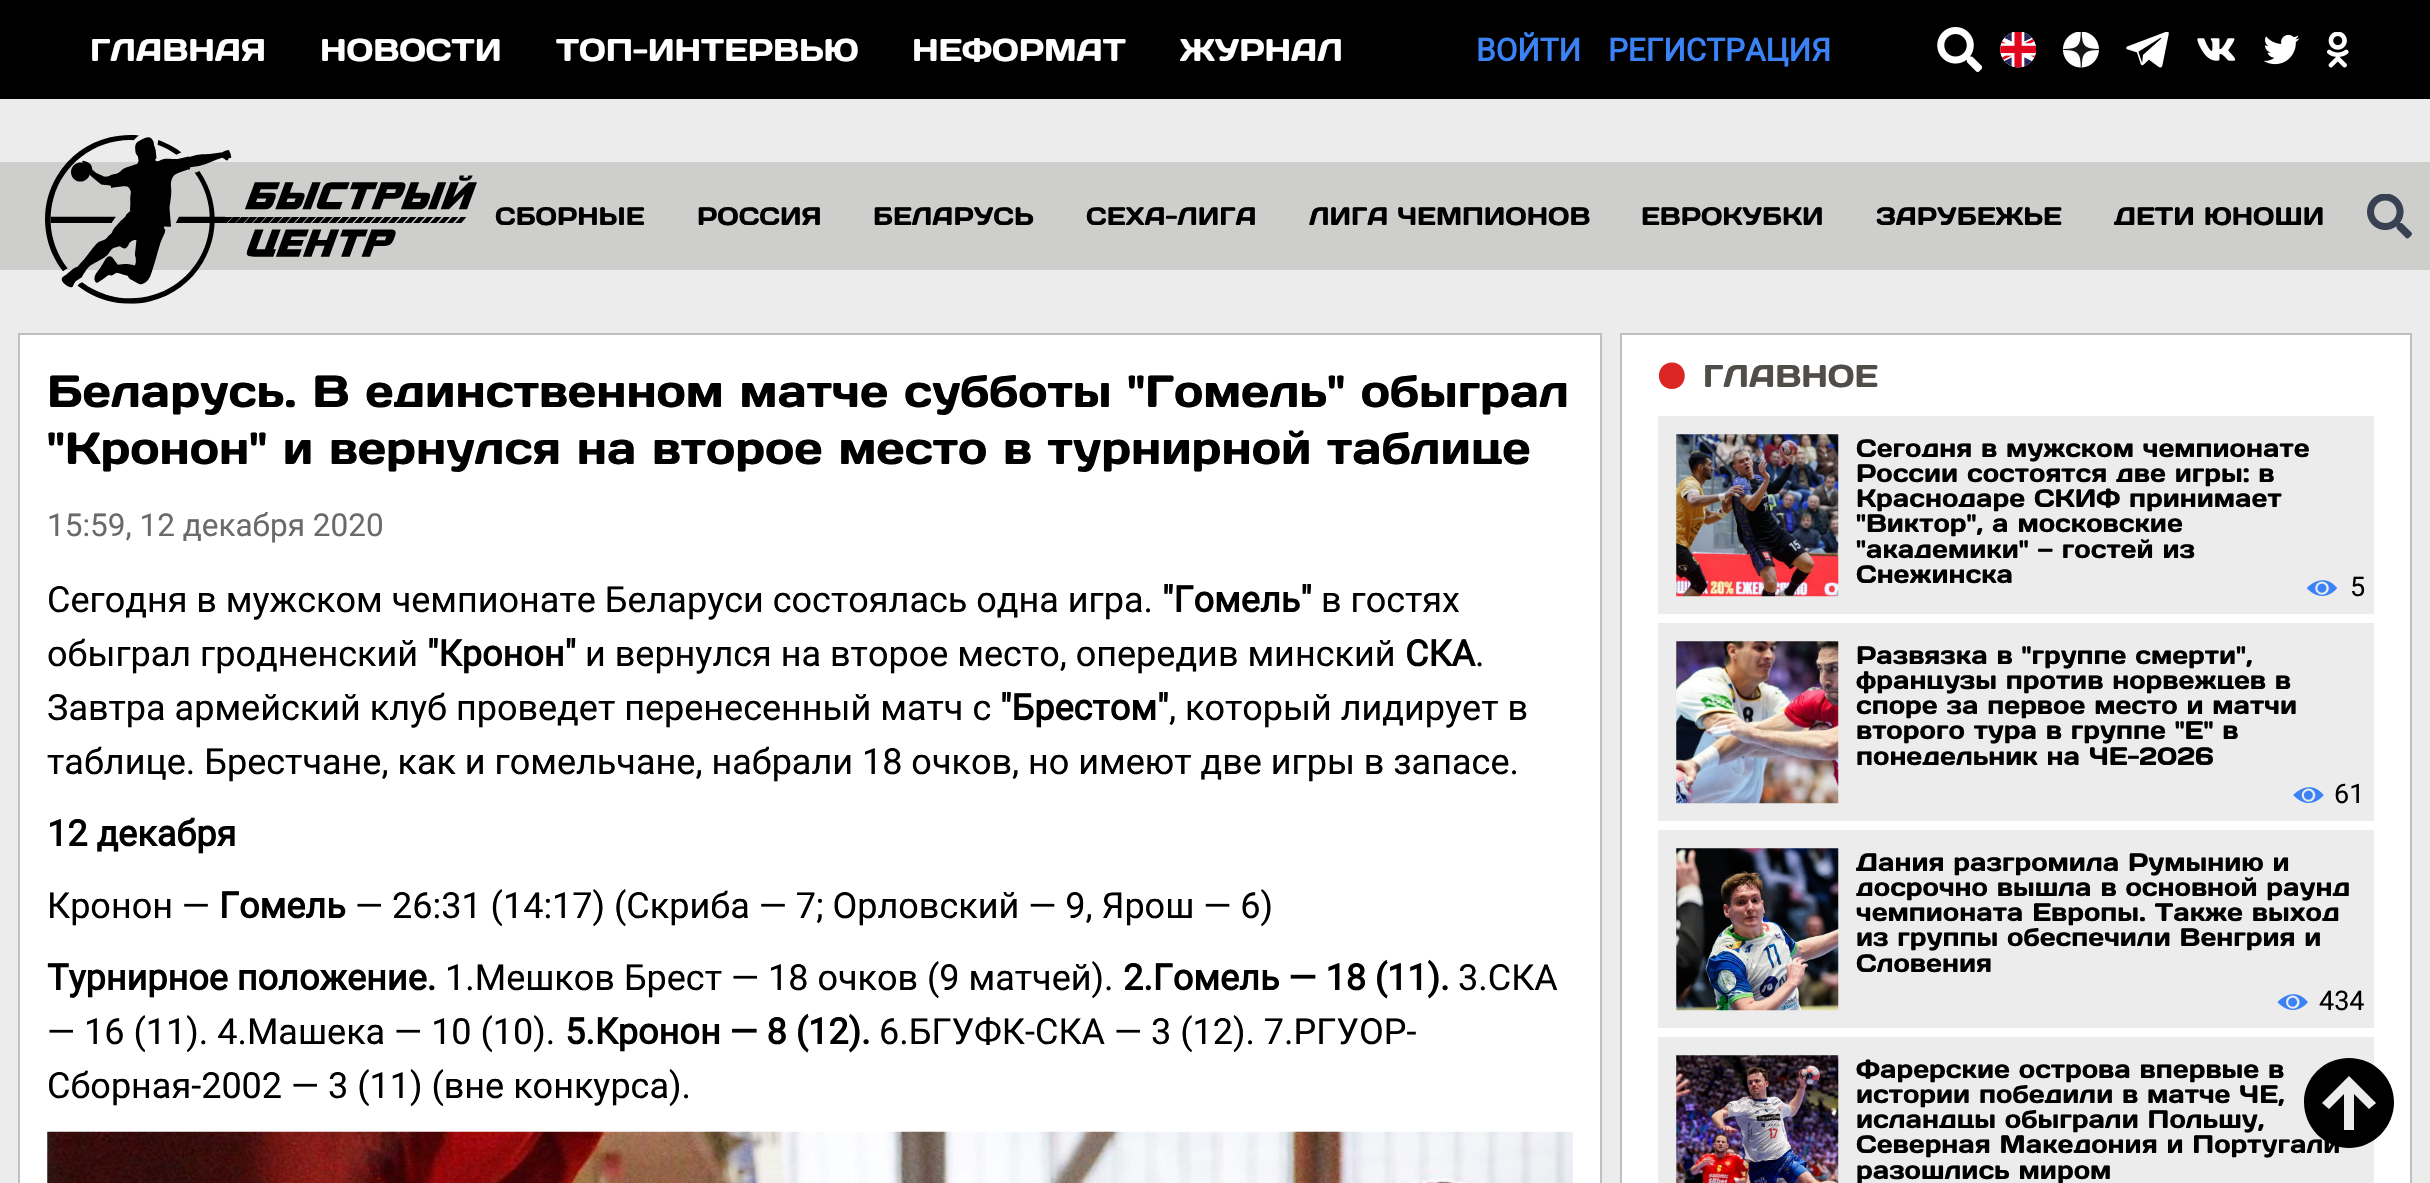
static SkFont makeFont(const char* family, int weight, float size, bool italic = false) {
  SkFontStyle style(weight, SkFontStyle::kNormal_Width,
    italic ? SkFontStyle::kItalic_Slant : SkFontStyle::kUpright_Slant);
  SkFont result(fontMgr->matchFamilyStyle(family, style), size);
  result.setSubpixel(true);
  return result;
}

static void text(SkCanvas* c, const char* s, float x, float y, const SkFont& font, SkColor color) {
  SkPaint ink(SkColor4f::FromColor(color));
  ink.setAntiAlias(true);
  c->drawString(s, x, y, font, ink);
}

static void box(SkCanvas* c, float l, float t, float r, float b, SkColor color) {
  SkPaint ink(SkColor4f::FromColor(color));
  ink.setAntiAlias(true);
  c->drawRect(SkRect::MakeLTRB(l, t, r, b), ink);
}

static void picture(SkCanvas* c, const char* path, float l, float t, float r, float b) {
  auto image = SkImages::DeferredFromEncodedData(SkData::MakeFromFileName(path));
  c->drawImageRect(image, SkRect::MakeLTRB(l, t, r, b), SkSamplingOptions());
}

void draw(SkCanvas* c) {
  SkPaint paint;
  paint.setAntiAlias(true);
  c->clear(0xff000000);
  SkFont face1 = makeFont("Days", 400, 31.5f);
  text(c, "ГЛАВНАЯ", 90, 61, face1, 0xffffffff);
  text(c, "НОВОСТИ", 320, 61, face1, 0xffffffff);
  text(c, "ТОП-ИНТЕРВЬЮ", 556, 61, face1, 0xffffffff);
  text(c, "НЕФОРМАТ", 912, 61, face1, 0xffffffff);
  text(c, "ЖУРНАЛ", 1180, 61, face1, 0xffffffff);
  SkFont face2 = makeFont("Roboto", 700, 31.5f);
  text(c, "ВОЙТИ", 1476, 61, face2, 0xff3b82f6);
  text(c, "РЕГИСТРАЦИЯ", 1608, 61, face2, 0xff3b82f6);
  picture(c, "img_01.png", 1937, 27, 1982, 72);
  picture(c, "img_02.png", 2000, 32, 2036, 68);
  picture(c, "img_03.png", 2063, 32, 2099, 68);
  picture(c, "img_04.png", 2126, 32, 2169, 68);
  picture(c, "img_05.png", 2197, 38, 2236, 61);
  picture(c, "img_06.png", 2264, 34, 2300, 65);
  picture(c, "img_07.png", 2327, 32, 2349, 68);
  box(c, 0, 99, 2430, 1183, 0xffedecec);
  box(c, 0, 162, 2430, 270, 0xffcecfcd);
  picture(c, "img_08.png", 45, 135, 477, 304);
  SkFont face3 = makeFont("Days", 400, 25.25f);
  text(c, "СБОРНЫЕ", 495, 225, face3, 0xff000000);
  text(c, "РОССИЯ", 697, 225, face3, 0xff000000);
  text(c, "БЕЛАРУСЬ", 873, 225, face3, 0xff000000);
  text(c, "СЕХА-ЛИГА", 1086, 225, face3, 0xff000000);
  text(c, "ЛИГА ЧЕМПИОНОВ", 1309, 225, face3, 0xff000000);
  text(c, "ЕВРОКУБКИ", 1641, 225, face3, 0xff000000);
  text(c, "ЗАРУБЕЖЬЕ", 1876, 225, face3, 0xff000000);
  text(c, "ДЕТИ ЮНОШИ", 2114, 225, face3, 0xff000000);
  picture(c, "img_09.png", 2367, 194, 2412, 239);
  paint.setColor(0xffffffff);
  c->drawRect(SkRect::MakeLTRB(19, 334, 1601, 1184), paint);
  paint.setStyle(SkPaint::kStroke_Style);
  paint.setStrokeWidth(2);
  paint.setColor(0xffbebfc1);
  c->drawRect(SkRect::MakeLTRB(19, 334, 1601, 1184), paint);
  SkFont face4 = makeFont("Days", 400, 45);
  text(c, "Беларусь. В единственном матче субботы \"Гомель\" обыграл", 47, 407, face4, 0xff000000);
  text(c, "\"Кронон\" и вернулся на второе место в турнирной таблице", 47, 464, face4, 0xff000000);
  SkFont face5 = makeFont("Roboto", 400, 31.5f);
  text(c, "15:59, 12 декабря 2020", 47, 536, face5, 0xff6a6a6a);
  SkFont face6 = makeFont("Roboto", 400, 36);
  text(c, "Сегодня в мужском чемпионате Беларуси состоялась одна игра.", 47, 612, face6, 0xff000000);
  SkFont face7 = makeFont("Roboto", 700, 36);
  text(c, "\"Гомель\"", 1162, 612, face7, 0xff000000);
  text(c, "в гостях", 1321, 612, face6, 0xff000000);
  text(c, "обыграл гродненский", 47, 666, face6, 0xff000000);
  text(c, "\"Кронон\"", 427, 666, face7, 0xff000000);
  text(c, "и вернулся на второе место, опередив минский", 585, 666, face6, 0xff000000);
  text(c, "СКА", 1405, 666, face7, 0xff000000);
  text(c, ".", 1475, 666, face6, 0xff000000);
  text(c, "Завтра армейский клуб проведет перенесенный матч с", 47, 720, face6, 0xff000000);
  text(c, "\"Брестом\"", 1000, 720, face7, 0xff000000);
  text(c, ", который лидирует в", 1169, 720, face6, 0xff000000);
  text(c, "таблице. Брестчане, как и гомельчане, набрали 18 очков, но имеют две игры в запасе.", 47, 774, face6, 0xff000000);
  text(c, "12 декабря", 47, 846, face7, 0xff000000);
  text(c, "Кронон —", 47, 918, face6, 0xff000000);
  text(c, "Гомель", 219, 918, face7, 0xff000000);
  text(c, "— 26:31 (14:17) (Скриба — 7; Орловский — 9, Ярош — 6)", 355, 918, face6, 0xff000000);
  text(c, "Турнирное положение.", 47, 990, face7, 0xff000000);
  text(c, "1.Мешков Брест — 18 очков (9 матчей).", 445, 990, face6, 0xff000000);
  text(c, "2.Гомель — 18 (11).", 1123, 990, face7, 0xff000000);
  text(c, "3.СКА", 1458, 990, face6, 0xff000000);
  text(c, "— 16 (11). 4.Машека — 10 (10).", 47, 1044, face6, 0xff000000);
  text(c, "5.Кронон — 8 (12).", 565, 1044, face7, 0xff000000);
  text(c, "6.БГУФК-СКА — 3 (12). 7.РГУОР-", 879, 1044, face6, 0xff000000);
  text(c, "Сборная-2002 — 3 (11) (вне конкурса).", 47, 1098, face6, 0xff000000);
  picture(c, "img_10.png", 47, 1131, 1573, 1183);
  paint.setStyle(SkPaint::kFill_Style);
  paint.setColor(0xffffffff);
  c->drawRect(SkRect::MakeLTRB(1621, 334, 2411, 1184), paint);
  paint.setStyle(SkPaint::kStroke_Style);
  paint.setColor(0xffbebfc1);
  c->drawRect(SkRect::MakeLTRB(1621, 334, 2411, 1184), paint);
  box(c, 1658, 1037, 2374, 1183, 0xffedecec);
  paint.setStyle(SkPaint::kFill_Style);
  paint.setColor(0xff000000);
  c->drawPath(SkPathBuilder().moveTo(2354, 1130).lineTo(2354, 1094).lineTo(2369, 1109).lineTo(2376, 1103).lineTo(2349, 1076).lineTo(2322, 1103).lineTo(2329, 1109).lineTo(2344, 1094).lineTo(2344, 1130).lineTo(2354, 1130).moveTo(2349, 1058).cubicTo(2374, 1058, 2394, 1078, 2394, 1102).cubicTo(2394, 1127, 2374, 1148, 2349, 1148).cubicTo(2324, 1148, 2304, 1127, 2304, 1102).cubicTo(2304, 1078, 2324, 1058, 2349, 1058).close().detach(), paint);
  paint.setColor(0xffdc2626);
  c->drawPath(SkPathBuilder().moveTo(1672, 362.5f).cubicTo(1654.5f, 362.5f, 1654.5f, 389, 1672, 389).cubicTo(1689, 389, 1689, 362.5f, 1672, 362.5f).close().detach(), paint);
  text(c, "ГЛАВНОЕ", 1703, 387, face1, 0xff514e49);
  box(c, 1658, 416, 2374, 614, 0xffedecec);
  picture(c, "img_11.png", 1676, 434, 1839, 597);
  text(c, "Сегодня в мужском чемпионате", 1856, 457, face3, 0xff000000);
  text(c, "России состоятся две игры: в", 1856, 482, face3, 0xff000000);
  text(c, "Краснодаре СКИФ принимает", 1856, 507, face3, 0xff000000);
  text(c, "\"Виктор\", а московские", 1856, 532, face3, 0xff000000);
  text(c, "\"академики\" — гостей из", 1856, 558, face3, 0xff000000);
  text(c, "Снежинска", 1856, 583, face3, 0xff000000);
  picture(c, "img_12.png", 2306, 580, 2338, 596);
  SkFont face8 = makeFont("Roboto", 400, 27);
  text(c, "5", 2350, 596, face8, 0xff000000);
  box(c, 1658, 623, 2374, 821, 0xffedecec);
  picture(c, "img_13.png", 1676, 641, 1839, 804);
  text(c, "Развязка в \"группе смерти\",", 1856, 664, face3, 0xff000000);
  text(c, "французы против норвежцев в", 1856, 689, face3, 0xff000000);
  text(c, "споре за первое место и матчи", 1856, 714, face3, 0xff000000);
  text(c, "второго тура в группе \"Е\" в", 1856, 739, face3, 0xff000000);
  text(c, "понедельник на ЧЕ-2026", 1856, 765, face3, 0xff000000);
  picture(c, "img_14.png", 2293, 787, 2324, 803);
  text(c, "61", 2334, 803, face8, 0xff000000);
  box(c, 1658, 830, 2374, 1028, 0xffedecec);
  picture(c, "img_15.png", 1676, 848, 1839, 1011);
  text(c, "Дания разгромила Румынию и", 1856, 871, face3, 0xff000000);
  text(c, "досрочно вышла в основной раунд", 1856, 896, face3, 0xff000000);
  text(c, "чемпионата Европы. Также выход", 1856, 921, face3, 0xff000000);
  text(c, "из группы обеспечили Венгрия и", 1856, 946, face3, 0xff000000);
  text(c, "Словения", 1856, 972, face3, 0xff000000);
  picture(c, "img_16.png", 2277, 994, 2308, 1010);
  text(c, "434", 2319, 1010, face8, 0xff000000);
  picture(c, "img_17.png", 1676, 1055, 1839, 1183);
  text(c, "Фарерские острова впервые в", 1856, 1078, face3, 0xff000000);
  text(c, "истории победили в матче ЧЕ,", 1856, 1103, face3, 0xff000000);
  text(c, "исландцы обыграли Польшу,", 1856, 1128, face3, 0xff000000);
  text(c, "Северная Македония и Португали", 1856, 1153, face3, 0xff000000);
  text(c, "разошлись миром", 1856, 1179, face3, 0xff000000);
}
